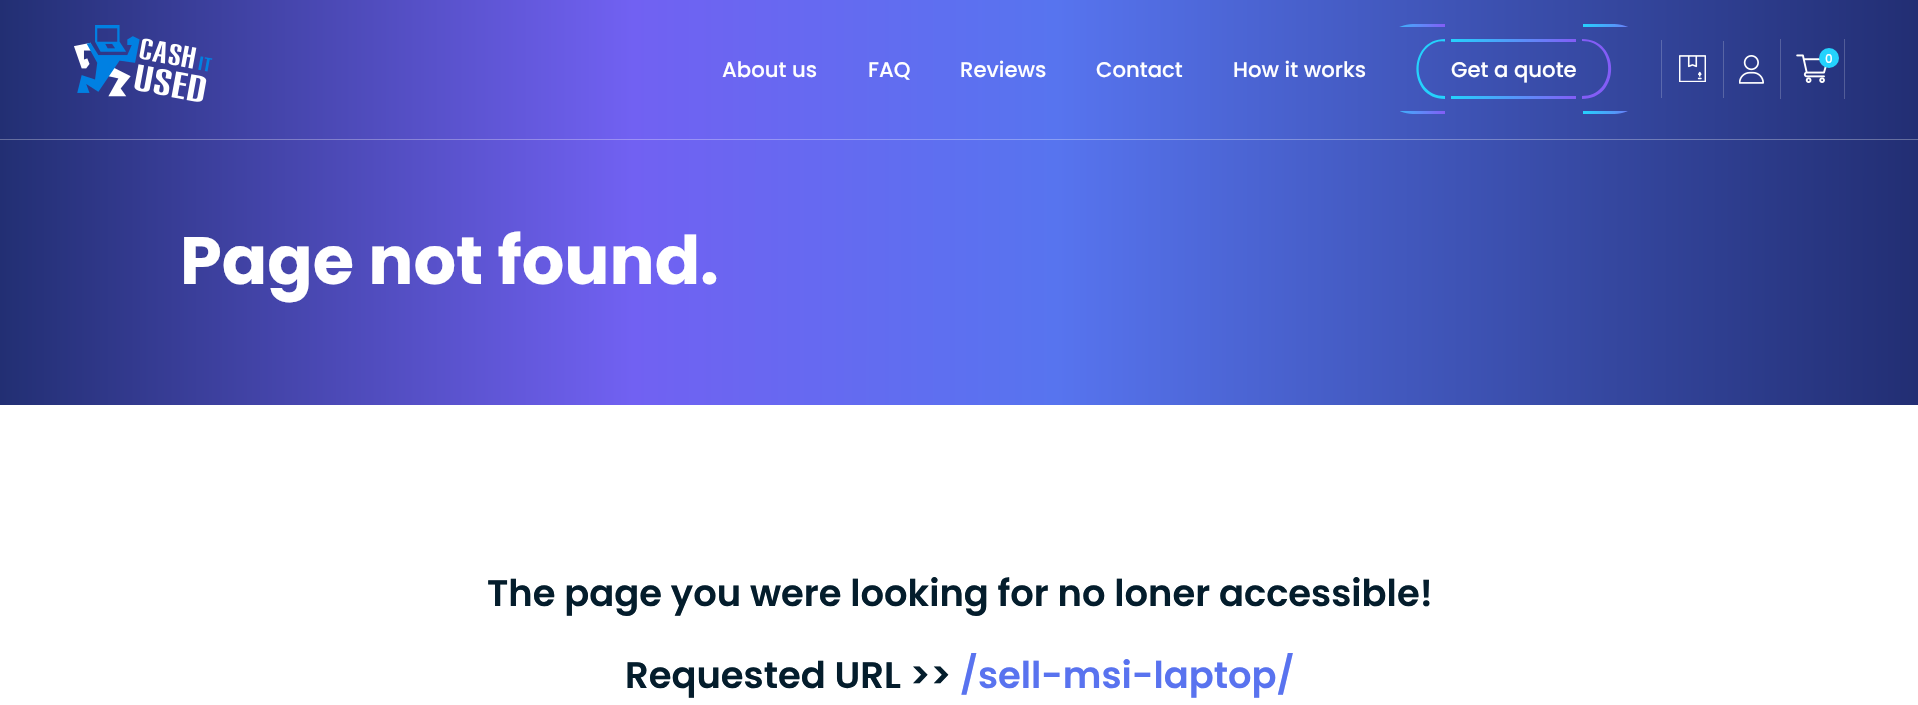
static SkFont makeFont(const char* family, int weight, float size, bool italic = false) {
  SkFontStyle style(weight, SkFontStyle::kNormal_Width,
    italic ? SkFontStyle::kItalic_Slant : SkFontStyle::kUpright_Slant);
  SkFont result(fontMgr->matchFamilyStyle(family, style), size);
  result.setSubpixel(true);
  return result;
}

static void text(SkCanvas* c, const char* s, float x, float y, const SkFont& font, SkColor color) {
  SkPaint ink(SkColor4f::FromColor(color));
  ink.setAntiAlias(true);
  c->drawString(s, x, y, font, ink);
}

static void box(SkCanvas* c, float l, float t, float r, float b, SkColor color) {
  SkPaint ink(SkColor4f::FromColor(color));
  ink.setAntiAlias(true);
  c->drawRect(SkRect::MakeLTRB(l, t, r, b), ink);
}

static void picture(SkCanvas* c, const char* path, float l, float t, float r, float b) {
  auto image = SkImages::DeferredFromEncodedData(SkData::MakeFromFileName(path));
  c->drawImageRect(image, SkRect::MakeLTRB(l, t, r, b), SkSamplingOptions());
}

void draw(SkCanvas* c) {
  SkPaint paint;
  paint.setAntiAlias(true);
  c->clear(0xffffffff);
  {
    const SkColor colors[] = {0xff222e73, 0xff5774ef, 0xff7161f2, 0xff222f73};
    const float stops[] = {0, 0.45f, 0.67f, 1};
    const SkPoint ends[] = {{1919, 203}, {0, 202}};
    paint.setShader(SkGradientShader::MakeLinear(ends, colors, stops, 4, SkTileMode::kClamp));
    paint.setAlpha(255);
  }
  c->drawRect(SkRect::MakeLTRB(0, 0, 1918, 405), paint);
  picture(c, "img_01.png", 74, 25, 213, 102);
  box(c, 1661, 40, 1662, 98, 0xff5b69ad);
  picture(c, "img_02.png", 1679, 55, 1706, 82);
  box(c, 1723, 41, 1724, 98, 0xff5865a5);
  picture(c, "img_03.png", 1739, 55, 1764, 84);
  box(c, 1844, 39, 1845, 99, 0xff525d98);
  box(c, 1780, 39, 1781, 99, 0xff55619f);
  picture(c, "img_04.png", 1796, 54, 1827, 83);
  paint.setShader(nullptr);
  paint.setColor(0xff24d2fd);
  c->drawCircle(1829, 58, 10, paint);
  SkFont face1 = makeFont("Poppins", 500, 12);
  text(c, "0", 1825, 63, face1, 0xffffffff);
  SkFont face2 = makeFont("Poppins", 500, 21.25f);
  text(c, "About us", 722, 77, face2, 0xffffffff);
  text(c, "FAQ", 868, 77, face2, 0xffffffff);
  text(c, "Reviews", 960, 77, face2, 0xffffffff);
  text(c, "Contact", 1096, 77, face2, 0xffffffff);
  text(c, "How it works", 1233, 77, face2, 0xffffffff);
  c->save();
  c->clipPath(SkPathBuilder().moveTo(1413, 24).lineTo(1445, 24).lineTo(1445, 114).lineTo(1413, 114).cubicTo(1395.5f, 114, 1381, 99.5f, 1381, 82).lineTo(1381, 56).cubicTo(1381, 38.5f, 1395.5f, 24, 1413, 24).close().detach(), true);
  {
    const SkColor colors[] = {0xff24d2fd, 0xff835df6};
    const float stops[] = {0, 1};
    const SkPoint ends[] = {{1381, 25}, {1445, 25}};
    paint.setShader(SkGradientShader::MakeLinear(ends, colors, stops, 2, SkTileMode::kClamp));
    paint.setAlpha(255);
  }
  c->drawRect(SkRect::MakeLTRB(1399, 24, 1445, 27), paint);
  {
    const SkColor colors[] = {0xff24d2fd, 0xff835df6};
    const float stops[] = {0, 1};
    const SkPoint ends[] = {{1381, 113}, {1445, 113}};
    paint.setShader(SkGradientShader::MakeLinear(ends, colors, stops, 2, SkTileMode::kClamp));
    paint.setAlpha(255);
  }
  c->drawRect(SkRect::MakeLTRB(1399, 111, 1445, 114), paint);
  c->restore();
  {
    const SkColor colors[] = {0xff24d2fd, 0xff835df6};
    const float stops[] = {0, 1};
    const SkPoint ends[] = {{1451, 40}, {1576, 40}};
    paint.setShader(SkGradientShader::MakeLinear(ends, colors, stops, 2, SkTileMode::kClamp));
    paint.setAlpha(255);
  }
  c->drawRect(SkRect::MakeLTRB(1451, 39, 1576, 42), paint);
  {
    const SkColor colors[] = {0xff24d2fd, 0xff835df6};
    const float stops[] = {0, 1};
    const SkPoint ends[] = {{1451, 98}, {1576, 98}};
    paint.setShader(SkGradientShader::MakeLinear(ends, colors, stops, 2, SkTileMode::kClamp));
    paint.setAlpha(255);
  }
  c->drawRect(SkRect::MakeLTRB(1451, 96, 1576, 99), paint);
  c->save();
  c->clipPath(SkPathBuilder().moveTo(1583, 24).lineTo(1614.5f, 24).cubicTo(1632, 24, 1646, 38, 1646, 55.5f).lineTo(1646, 82.5f).cubicTo(1646, 100, 1632, 114, 1614.5f, 114).lineTo(1583, 114).close().detach(), true);
  {
    const SkColor colors[] = {0xff24d2fd, 0xff835df6};
    const float stops[] = {0, 1};
    const SkPoint ends[] = {{1583, 25}, {1646, 25}};
    paint.setShader(SkGradientShader::MakeLinear(ends, colors, stops, 2, SkTileMode::kClamp));
    paint.setAlpha(255);
  }
  c->drawRect(SkRect::MakeLTRB(1583, 24, 1628, 27), paint);
  {
    const SkColor colors[] = {0xff24d2fd, 0xff835df6};
    const float stops[] = {0, 1};
    const SkPoint ends[] = {{1583, 113}, {1646, 113}};
    paint.setShader(SkGradientShader::MakeLinear(ends, colors, stops, 2, SkTileMode::kClamp));
    paint.setAlpha(255);
  }
  c->drawRect(SkRect::MakeLTRB(1583, 111, 1628, 114), paint);
  c->restore();
  paint.setShader(nullptr);
  paint.setColor(0xff24d2fd);
  c->drawPath(SkPathBuilder(SkPathFillType::kEvenOdd).moveTo(1445, 39).lineTo(1445, 99).cubicTo(1407, 99, 1407, 39, 1445, 39).close().moveTo(1445, 41).lineTo(1445, 96).cubicTo(1410, 96, 1410, 41, 1445, 41).close().detach(), paint);
  text(c, "Get a quote", 1451, 77, face2, 0xffffffff);
  paint.setColor(0xff835df6);
  c->drawPath(SkPathBuilder(SkPathFillType::kEvenOdd).moveTo(1582, 39).cubicTo(1621, 39, 1621, 99, 1582, 99).close().moveTo(1582, 41).cubicTo(1617, 41, 1617, 96, 1582, 96).close().detach(), paint);
  {
    const SkColor colors[] = {0xff646d9d, 0xff899ef4, 0xff9c90f6, 0xff646d9d};
    const float stops[] = {0, 0.45f, 0.67f, 1};
    const SkPoint ends[] = {{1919, 203}, {0, 202}};
    paint.setShader(SkGradientShader::MakeLinear(ends, colors, stops, 4, SkTileMode::kClamp));
    paint.setAlpha(255);
  }
  c->drawRect(SkRect::MakeLTRB(0, 139, 1918, 140), paint);
  SkFont face3 = makeFont("Poppins", 700, 67);
  text(c, "Page not found.", 180, 284, face3, 0xffffffff);
  SkFont face4 = makeFont("Poppins", 600, 36.9f);
  text(c, "The page you were looking for no loner accessible!", 487, 606, face4, 0xff041d2c);
  text(c, "Requested URL >>", 625, 688, face4, 0xff041d2c);
  text(c, "/sell-msi-laptop/", 960, 688, face4, 0xff5973ef);
}
